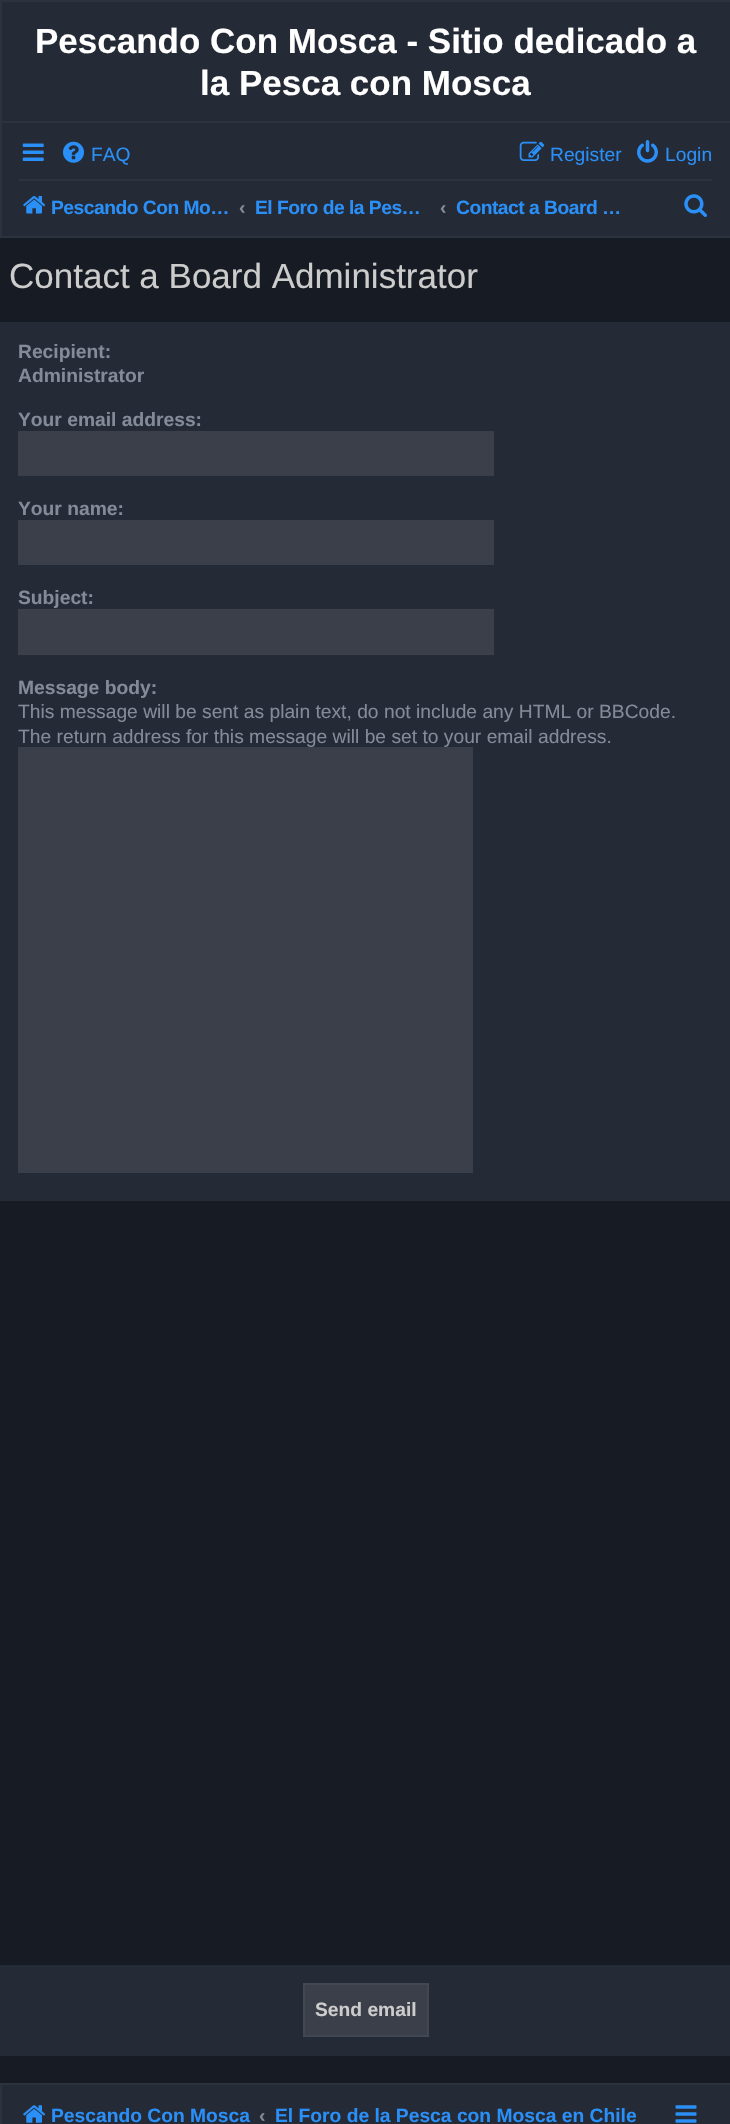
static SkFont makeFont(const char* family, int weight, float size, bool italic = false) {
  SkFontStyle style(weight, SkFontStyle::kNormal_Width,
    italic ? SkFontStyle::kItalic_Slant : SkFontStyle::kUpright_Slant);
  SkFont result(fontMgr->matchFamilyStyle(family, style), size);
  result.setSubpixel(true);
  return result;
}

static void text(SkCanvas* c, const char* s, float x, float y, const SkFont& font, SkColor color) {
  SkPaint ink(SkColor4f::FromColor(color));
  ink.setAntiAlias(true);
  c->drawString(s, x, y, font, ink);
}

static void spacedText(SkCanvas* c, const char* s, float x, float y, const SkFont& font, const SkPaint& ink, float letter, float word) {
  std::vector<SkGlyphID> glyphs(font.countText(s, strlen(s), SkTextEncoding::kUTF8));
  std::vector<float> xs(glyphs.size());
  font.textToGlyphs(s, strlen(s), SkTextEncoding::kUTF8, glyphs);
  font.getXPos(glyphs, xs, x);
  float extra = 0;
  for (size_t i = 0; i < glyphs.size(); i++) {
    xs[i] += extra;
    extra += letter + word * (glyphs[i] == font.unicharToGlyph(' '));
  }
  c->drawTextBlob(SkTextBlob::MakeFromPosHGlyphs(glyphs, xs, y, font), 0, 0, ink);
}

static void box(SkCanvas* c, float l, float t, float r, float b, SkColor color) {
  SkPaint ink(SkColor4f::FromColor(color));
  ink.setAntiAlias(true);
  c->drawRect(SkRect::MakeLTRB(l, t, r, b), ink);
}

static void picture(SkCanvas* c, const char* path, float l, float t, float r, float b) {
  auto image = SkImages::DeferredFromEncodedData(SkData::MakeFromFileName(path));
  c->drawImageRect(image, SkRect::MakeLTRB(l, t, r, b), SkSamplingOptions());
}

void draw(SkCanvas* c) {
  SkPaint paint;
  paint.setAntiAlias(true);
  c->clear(0xff171b24);
  paint.setColor(0xff242a36);
  c->drawRect(SkRect::MakeLTRB(1, 1, 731, 122), paint);
  paint.setStyle(SkPaint::kStroke_Style);
  paint.setStrokeWidth(2);
  paint.setColor(0xff2d333e);
  c->drawRect(SkRect::MakeLTRB(1, 1, 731, 122), paint);
  SkFont face1 = makeFont("Liberation Sans", 700, 35);
  text(c, "Pescando Con Mosca - Sitio dedicado a", 35, 53, face1, 0xffffffff);
  text(c, "la Pesca con Mosca", 200, 95, face1, 0xffffffff);
  paint.setStyle(SkPaint::kFill_Style);
  paint.setColor(0xff242a36);
  c->drawRect(SkRect::MakeLTRB(1, 122, 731, 237), paint);
  paint.setStyle(SkPaint::kStroke_Style);
  paint.setColor(0xff2d333e);
  c->drawRect(SkRect::MakeLTRB(1, 122, 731, 237), paint);
  picture(c, "img_01.png", 22, 143, 44, 161);
  picture(c, "img_02.png", 63, 141, 84, 163);
  SkFont face2 = makeFont("Liberation Sans", 400, 19.25f);
  text(c, "FAQ", 91, 161, face2, 0xff2a8ff7);
  picture(c, "img_03.png", 519, 141, 545, 161);
  text(c, "Register", 550, 161, face2, 0xff2a8ff7);
  picture(c, "img_04.png", 637, 140, 658, 163);
  text(c, "Login", 665, 161, face2, 0xff2a8ff7);
  box(c, 19, 179, 712, 181, 0xff2d333e);
  picture(c, "img_05.png", 23, 196, 46, 214);
  SkFont face3 = makeFont("Liberation Sans", 700, 19.25f);
  paint.setStyle(SkPaint::kFill_Style);
  paint.setColor(0xff2a8ff7);
  spacedText(c, "Pescando Con Mo…", 51, 214, face3, paint, -0.5f, 0);
  text(c, "‹", 239, 214, face3, 0xff838b98);
  spacedText(c, "El Foro de la Pes…", 255, 214, face3, paint, -0.5f, 0);
  text(c, "‹", 440, 214, face3, 0xff838b98);
  spacedText(c, "Contact a Board …", 456, 214, face3, paint, -0.5f, 0);
  picture(c, "img_06.png", 684, 194, 707, 217);
  SkFont face4 = makeFont("Liberation Sans", 400, 35);
  text(c, "Contact a Board Administrator", 9, 288, face4, 0xffcccccc);
  box(c, 0, 322, 730, 1201, 0xff242a36);
  text(c, "Recipient:", 18, 358, face3, 0xff838b98);
  text(c, "Administrator", 18, 382, face3, 0xff838b98);
  text(c, "Your email address:", 18, 426, face3, 0xff838b98);
  box(c, 18, 431, 494, 476, 0xff3a3f4a);
  text(c, "Your name:", 18, 515, face3, 0xff838b98);
  box(c, 18, 520, 494, 565, 0xff3a3f4a);
  text(c, "Subject:", 18, 604, face3, 0xff838b98);
  box(c, 18, 609, 494, 655, 0xff3a3f4a);
  text(c, "Message body:", 18, 694, face3, 0xff838b98);
  text(c, "This message will be sent as plain text, do not include any HTML or BBCode.", 18, 718, face2, 0xff838b98);
  text(c, "The return address for this message will be set to your email address.", 18, 743, face2, 0xff838b98);
  box(c, 18, 747, 473, 1173, 0xff3a3f4a);
  box(c, 0, 1965, 730, 2056, 0xff242a36);
  paint.setColor(0xff3a3f4a);
  c->drawRect(SkRect::MakeLTRB(304, 1984, 428, 2036), paint);
  paint.setStyle(SkPaint::kStroke_Style);
  paint.setColor(0xff424751);
  c->drawRect(SkRect::MakeLTRB(304, 1984, 428, 2036), paint);
  text(c, "Send email", 315, 2016, face3, 0xffcccccc);
  paint.setStyle(SkPaint::kFill_Style);
  paint.setColor(0xff242a36);
  c->drawRect(SkRect::MakeLTRB(1, 2084, 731, 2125), paint);
  paint.setStyle(SkPaint::kStroke_Style);
  paint.setColor(0xff2d333e);
  c->drawRect(SkRect::MakeLTRB(1, 2084, 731, 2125), paint);
  picture(c, "img_07.png", 23, 2105, 46, 2123);
  text(c, "Pescando Con Mosca", 51, 2122, face3, 0xff2a8ff7);
  text(c, "‹", 259, 2122, face3, 0xff838b98);
  text(c, "El Foro de la Pesca con Mosca en Chile", 275, 2122, face3, 0xff2a8ff7);
  picture(c, "img_08.png", 675, 2105, 697, 2123);
}
